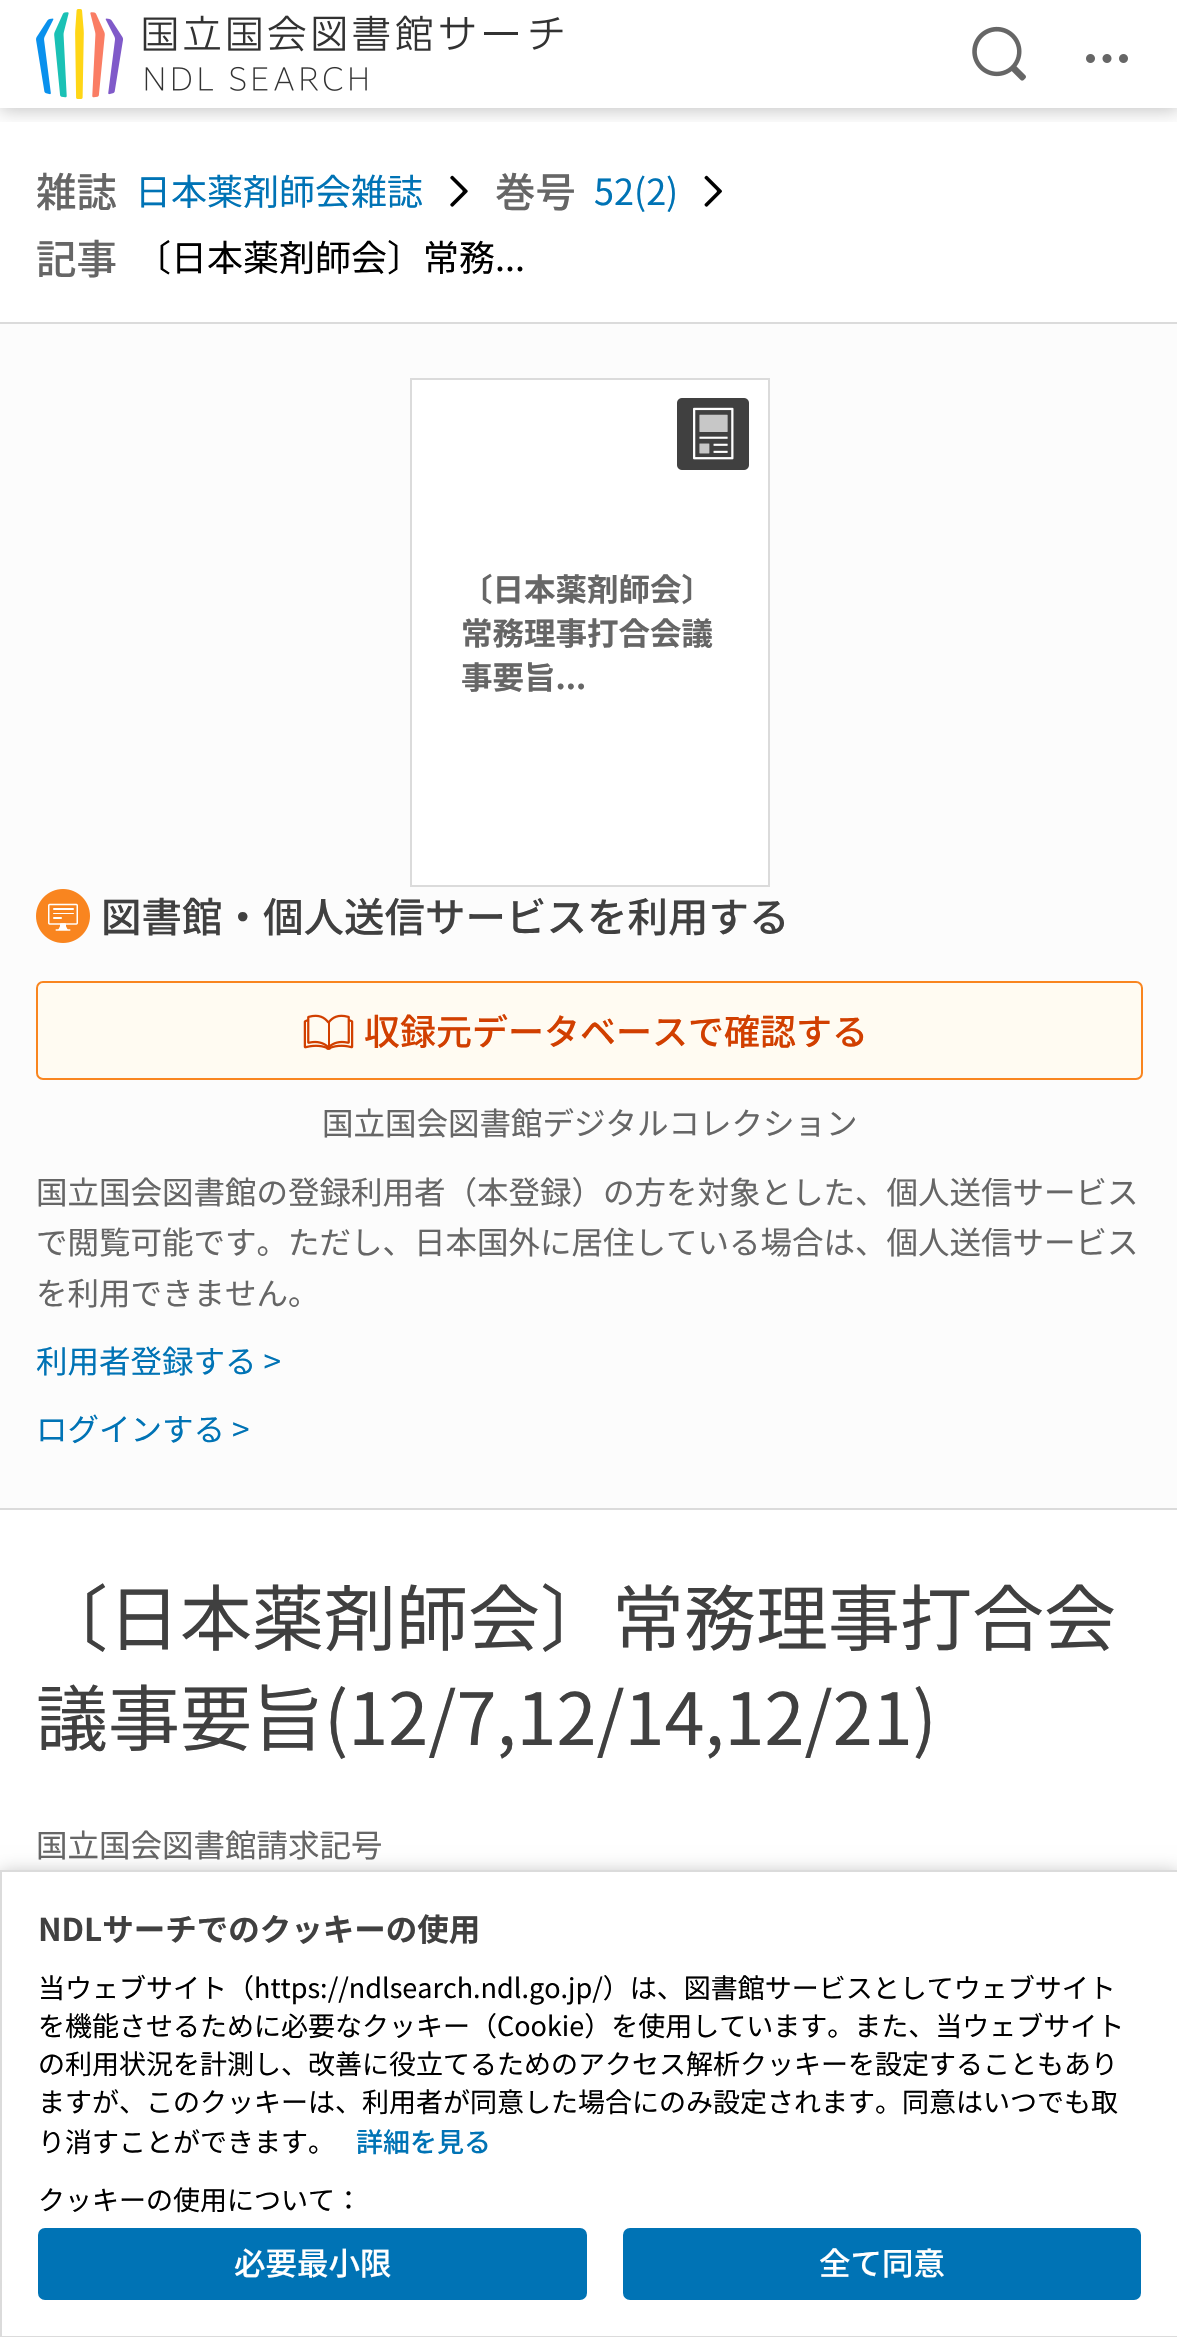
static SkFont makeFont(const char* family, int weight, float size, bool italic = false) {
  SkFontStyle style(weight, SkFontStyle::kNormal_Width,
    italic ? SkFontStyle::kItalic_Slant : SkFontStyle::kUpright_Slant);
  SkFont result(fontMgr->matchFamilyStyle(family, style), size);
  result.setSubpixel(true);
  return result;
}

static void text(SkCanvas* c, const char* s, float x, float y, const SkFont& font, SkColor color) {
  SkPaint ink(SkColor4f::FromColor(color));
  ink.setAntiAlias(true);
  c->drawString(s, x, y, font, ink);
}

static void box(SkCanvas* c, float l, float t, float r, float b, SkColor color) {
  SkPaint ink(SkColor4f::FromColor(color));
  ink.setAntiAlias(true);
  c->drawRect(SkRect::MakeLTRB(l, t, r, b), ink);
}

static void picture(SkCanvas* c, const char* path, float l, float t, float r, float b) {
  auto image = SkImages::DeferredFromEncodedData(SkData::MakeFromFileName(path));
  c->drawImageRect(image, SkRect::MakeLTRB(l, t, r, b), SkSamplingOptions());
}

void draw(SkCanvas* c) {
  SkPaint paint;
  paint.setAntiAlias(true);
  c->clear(0xffffffff);
  c->save();
  c->clipRect(SkRect::MakeLTRB(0, 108, 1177, 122));
  paint.setColor(0x3d000000);
  paint.setMaskFilter(SkMaskFilter::MakeBlur(kNormal_SkBlurStyle, 9));
  c->drawRect(SkRect::MakeLTRB(0, 2, 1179, 110), paint);
  paint.setMaskFilter(nullptr);
  c->restore();
  picture(c, "img_01.png", 36, 9, 563, 99);
  picture(c, "img_02.png", 972, 26, 1026, 81);
  picture(c, "img_03.png", 1086, 54, 1128, 63);
  SkFont face1 = makeFont("Noto Sans JP", 500, 40.5f);
  text(c, "雑誌", 36, 207, face1, 0xff666666);
  SkFont face2 = makeFont("Noto Sans JP", 400, 36);
  text(c, "日本薬剤師会雑誌", 135, 205, face2, 0xff0073b5);
  picture(c, "img_04.png", 450, 175, 468, 207);
  text(c, "巻号", 495, 207, face1, 0xff666666);
  text(c, "52(2)", 594, 205, face2, 0xff0073b5);
  picture(c, "img_05.png", 704, 175, 722, 207);
  text(c, "記事", 36, 274, face1, 0xff666666);
  text(c, "〔日本薬剤師会〕常務...", 135, 271, face2, 0xff000000);
  box(c, 0, 324, 1177, 1508, 0xfffcfcfc);
  box(c, 0, 322, 1177, 324, 0xffdbdbdb);
  box(c, 0, 1508, 1177, 1510, 0xffdbdbdb);
  paint.setColor(0xffffffff);
  c->drawRect(SkRect::MakeLTRB(411, 379, 769, 886), paint);
  paint.setStyle(SkPaint::kStroke_Style);
  paint.setStrokeWidth(2);
  paint.setColor(0xffdbdbdb);
  c->drawRect(SkRect::MakeLTRB(411, 379, 769, 886), paint);
  picture(c, "img_06.png", 677, 398, 749, 470);
  SkFont face3 = makeFont("Noto Sans JP", 700, 31.5f);
  text(c, "〔日本薬剤師会〕", 461, 601, face3, 0xff666666);
  text(c, "常務理事打合会議", 461, 645, face3, 0xff666666);
  text(c, "事要旨...", 461, 689, face3, 0xff666666);
  picture(c, "img_07.png", 36, 889, 90, 943);
  text(c, "図書館・個人送信サービスを利用する", 101, 932, face1, 0xff404040);
  paint.setStyle(SkPaint::kFill_Style);
  paint.setColor(0xfffffbf2);
  c->drawRoundRect(SkRect::MakeLTRB(37, 982, 1142, 1079), 6, 6, paint);
  paint.setStyle(SkPaint::kStroke_Style);
  paint.setColor(0xfff9851f);
  c->drawRoundRect(SkRect::MakeLTRB(37, 982, 1142, 1079), 6, 6, paint);
  picture(c, "img_08.png", 303, 1014, 354, 1050);
  SkFont face4 = makeFont("Noto Sans JP", 500, 36);
  text(c, "収録元データベースで確認する", 364, 1045, face4, 0xffd13f00);
  SkFont face5 = makeFont("Noto Sans JP", 400, 31.5f);
  text(c, "国立国会図書館デジタルコレクション", 322, 1135, face5, 0xff666666);
  text(c, "国立国会図書館の登録利用者（本登録）の方を対象とした、個人送信サービス", 36, 1204, face5, 0xff666666);
  text(c, "で閲覧可能です。ただし、日本国外に居住している場合は、個人送信サービス", 36, 1254, face5, 0xff666666);
  text(c, "を利用できません。", 36, 1305, face5, 0xff666666);
  text(c, "利用者登録する >", 36, 1373, face5, 0xff0073b5);
  text(c, "ログインする >", 36, 1441, face5, 0xff0073b5);
  SkFont face6 = makeFont("Noto Sans JP", 400, 72);
  text(c, "〔日本薬剤師会〕常務理事打合会", 36, 1645, face6, 0xff404040);
  text(c, "議事要旨(12/7,12/14,12/21)", 36, 1745, face6, 0xff404040);
  text(c, "国立国会図書館請求記号", 36, 1857, face5, 0xff666666);
  paint.setStyle(SkPaint::kFill_Style);
  paint.setColor(0x3d000000);
  paint.setMaskFilter(SkMaskFilter::MakeBlur(kNormal_SkBlurStyle, 9));
  c->drawRect(SkRect::MakeLTRB(0, 1872, 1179, 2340), paint);
  paint.setMaskFilter(nullptr);
  paint.setColor(0xffffffff);
  c->drawRect(SkRect::MakeLTRB(1, 1871, 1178, 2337), paint);
  paint.setStyle(SkPaint::kStroke_Style);
  paint.setColor(0xffdbdbdb);
  c->drawRect(SkRect::MakeLTRB(1, 1871, 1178, 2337), paint);
  text(c, "NDLサーチでのクッキーの使用", 38, 1941, face3, 0xff404040);
  SkFont face7 = makeFont("Noto Sans JP", 400, 27);
  text(c, "当ウェブサイト（https://ndlsearch.ndl.go.jp/）は、図書館サービスとしてウェブサイト", 38, 1998, face7, 0xff000000);
  text(c, "を機能させるために必要なクッキー（Cookie）を使用しています。また、当ウェブサイト", 38, 2036, face7, 0xff000000);
  text(c, "の利用状況を計測し、改善に役立てるためのアクセス解析クッキーを設定することもあり", 38, 2074, face7, 0xff000000);
  text(c, "ますが、このクッキーは、利用者が同意した場合にのみ設定されます。同意はいつでも取", 38, 2112, face7, 0xff000000);
  text(c, "り消すことができます。", 38, 2152, face7, 0xff000000);
  SkFont face8 = makeFont("Noto Sans JP", 500, 27);
  text(c, "詳細を見る", 356, 2152, face8, 0xff0073b5);
  text(c, "クッキーの使用について：", 38, 2210, face7, 0xff000000);
  paint.setStyle(SkPaint::kFill_Style);
  paint.setColor(0xff0073b5);
  c->drawRoundRect(SkRect::MakeLTRB(39, 2229, 586, 2299), 6, 6, paint);
  paint.setStyle(SkPaint::kStroke_Style);
  c->drawRoundRect(SkRect::MakeLTRB(39, 2229, 586, 2299), 6, 6, paint);
  SkFont face9 = makeFont("Noto Sans JP", 500, 31.5f);
  text(c, "必要最小限", 234, 2275, face9, 0xffffffff);
  paint.setStyle(SkPaint::kFill_Style);
  c->drawRoundRect(SkRect::MakeLTRB(624, 2229, 1140, 2299), 6, 6, paint);
  paint.setStyle(SkPaint::kStroke_Style);
  c->drawRoundRect(SkRect::MakeLTRB(624, 2229, 1140, 2299), 6, 6, paint);
  text(c, "全て同意", 819, 2275, face9, 0xffffffff);
}
